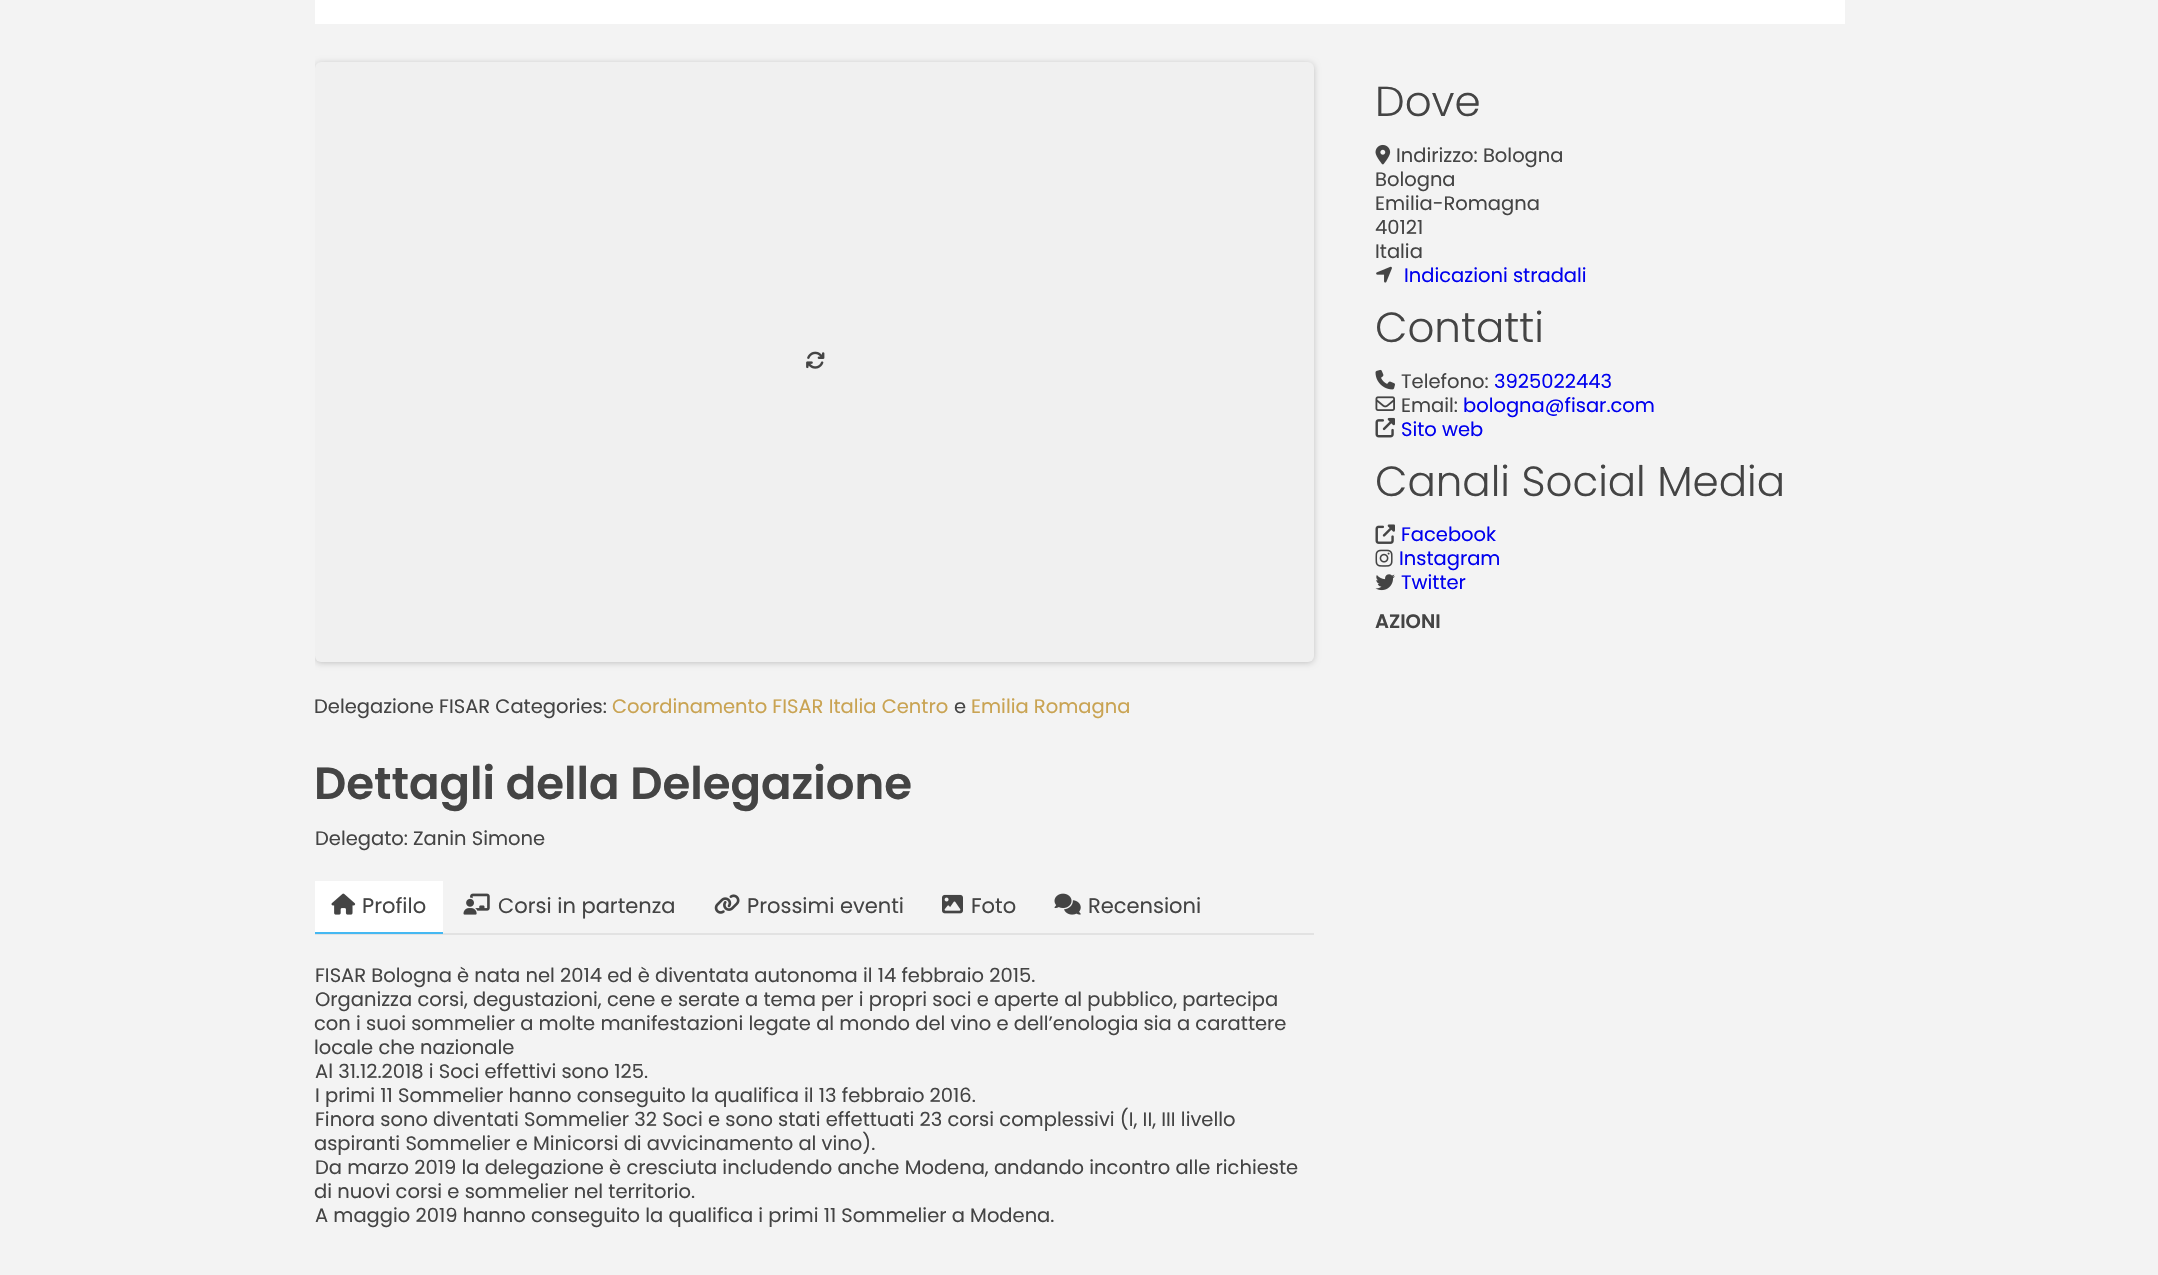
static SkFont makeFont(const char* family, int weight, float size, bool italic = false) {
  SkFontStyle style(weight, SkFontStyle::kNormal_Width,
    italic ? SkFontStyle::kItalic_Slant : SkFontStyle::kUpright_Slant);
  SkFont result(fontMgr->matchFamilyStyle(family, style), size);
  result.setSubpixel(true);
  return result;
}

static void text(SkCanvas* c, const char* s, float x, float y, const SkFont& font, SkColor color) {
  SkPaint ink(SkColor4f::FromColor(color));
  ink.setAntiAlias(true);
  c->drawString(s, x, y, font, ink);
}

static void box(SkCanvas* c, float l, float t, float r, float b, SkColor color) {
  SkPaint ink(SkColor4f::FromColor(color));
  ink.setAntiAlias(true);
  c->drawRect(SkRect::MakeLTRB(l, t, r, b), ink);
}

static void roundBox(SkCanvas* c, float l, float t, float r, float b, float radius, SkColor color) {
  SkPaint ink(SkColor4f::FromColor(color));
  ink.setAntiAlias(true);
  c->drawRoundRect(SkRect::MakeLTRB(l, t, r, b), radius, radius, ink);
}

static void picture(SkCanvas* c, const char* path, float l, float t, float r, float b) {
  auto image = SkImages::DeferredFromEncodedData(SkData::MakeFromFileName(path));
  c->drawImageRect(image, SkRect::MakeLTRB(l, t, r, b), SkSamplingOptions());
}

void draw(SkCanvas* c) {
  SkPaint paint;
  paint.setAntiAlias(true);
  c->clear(0xfff3f3f3);
  box(c, 315, 0, 1845, 24, 0xffffffff);
  SkFont face1 = makeFont("Poppins", 300, 42);
  text(c, "Dove", 1375, 116, face1, 0xff444444);
  picture(c, "img_01.png", 1375, 144, 1391, 165);
  SkFont face2 = makeFont("Poppins", 400, 19.5f);
  text(c, "Indirizzo: Bologna", 1396, 162, face2, 0xff444444);
  text(c, "Bologna", 1375, 186, face2, 0xff444444);
  text(c, "Emilia-Romagna", 1375, 210, face2, 0xff444444);
  text(c, "40121", 1375, 234, face2, 0xff444444);
  text(c, "Italia", 1375, 258, face2, 0xff444444);
  picture(c, "img_02.png", 1376, 266, 1392, 283);
  text(c, "Indicazioni stradali", 1404, 282, face2, 0xff0000ee);
  text(c, "Contatti", 1375, 342, face1, 0xff444444);
  picture(c, "img_03.png", 1375, 369, 1395, 390);
  text(c, "Telefono:", 1401, 388, face2, 0xff444444);
  text(c, "3925022443", 1494, 388, face2, 0xff0000ee);
  picture(c, "img_04.png", 1375, 396, 1395, 411);
  text(c, "Email:", 1401, 412, face2, 0xff444444);
  text(c, "bologna@fisar.com", 1463, 412, face2, 0xff0000ee);
  picture(c, "img_05.png", 1375, 417, 1395, 438);
  text(c, "Sito web", 1401, 436, face2, 0xff0000ee);
  text(c, "Canali Social Media", 1375, 496, face1, 0xff444444);
  picture(c, "img_06.png", 1375, 524, 1395, 544);
  text(c, "Facebook", 1401, 541, face2, 0xff0000ee);
  picture(c, "img_07.png", 1375, 549, 1393, 567);
  text(c, "Instagram", 1399, 565, face2, 0xff0000ee);
  picture(c, "img_08.png", 1375, 574, 1395, 591);
  text(c, "Twitter", 1401, 589, face2, 0xff0000ee);
  SkFont face3 = makeFont("Poppins", 600, 19.5f);
  text(c, "AZIONI", 1375, 628, face3, 0xff444444);
  c->save();
  c->clipRect(SkRect::MakeLTRB(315, 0, 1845, 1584));
  paint.setColor(0x33000000);
  paint.setMaskFilter(SkMaskFilter::MakeBlur(kNormal_SkBlurStyle, 3));
  c->drawRoundRect(SkRect::MakeLTRB(315, 63, 1314, 663), 6, 6, paint);
  paint.setMaskFilter(nullptr);
  c->restore();
  roundBox(c, 315, 62, 1314, 662, 6, 0xfff0f0f0);
  picture(c, "img_09.png", 806, 351, 825, 369);
  text(c, "Delegazione FISAR Categories:", 314, 713, face2, 0xff444444);
  text(c, "Coordinamento FISAR Italia Centro", 612, 713, face2, 0xffc9a352);
  text(c, "e", 954, 713, face2, 0xff444444);
  text(c, "Emilia Romagna", 971, 713, face2, 0xffc9a352);
  SkFont face4 = makeFont("Poppins", 600, 45);
  text(c, "Dettagli della Delegazione", 314, 799, face4, 0xff444444);
  text(c, "Delegato: Zanin Simone", 315, 845, face2, 0xff444444);
  box(c, 315, 933, 1314, 935, 0xffe2e2e2);
  box(c, 315, 881, 443, 932, 0xffffffff);
  box(c, 315, 932, 443, 934, 0xff45b8f2);
  picture(c, "img_10.png", 331, 893, 356, 915);
  SkFont face5 = makeFont("Poppins", 400, 21);
  text(c, "Profilo", 362, 913, face5, 0xff444444);
  picture(c, "img_11.png", 463, 893, 490, 915);
  text(c, "Corsi in partenza", 498, 913, face5, 0xff444444);
  picture(c, "img_12.png", 714, 894, 740, 914);
  text(c, "Prossimi eventi", 747, 913, face5, 0xff444444);
  picture(c, "img_13.png", 942, 894, 963, 914);
  text(c, "Foto", 971, 913, face5, 0xff444444);
  picture(c, "img_14.png", 1054, 893, 1081, 915);
  text(c, "Recensioni", 1088, 913, face5, 0xff444444);
  text(c, "FISAR Bologna è nata nel 2014 ed è diventata autonoma il 14 febbraio 2015.", 315, 982, face2, 0xff444444);
  text(c, "Organizza corsi, degustazioni, cene e serate a tema per i propri soci e aperte al pubblico, partecipa", 315, 1006, face2, 0xff444444);
  text(c, "con i suoi sommelier a molte manifestazioni legate al mondo del vino e dell’enologia sia a carattere", 314, 1030, face2, 0xff444444);
  text(c, "locale che nazionale", 314, 1054, face2, 0xff444444);
  text(c, "Al 31.12.2018 i Soci effettivi sono 125.", 315, 1078, face2, 0xff444444);
  text(c, "I primi 11 Sommelier hanno conseguito la qualifica il 13 febbraio 2016.", 315, 1102, face2, 0xff444444);
  text(c, "Finora sono diventati Sommelier 32 Soci e sono stati effettuati 23 corsi complessivi (I, II, III livello", 315, 1126, face2, 0xff444444);
  text(c, "aspiranti Sommelier e Minicorsi di avvicinamento al vino).", 314, 1150, face2, 0xff444444);
  text(c, "Da marzo 2019 la delegazione è cresciuta includendo anche Modena, andando incontro alle richieste", 315, 1174, face2, 0xff444444);
  text(c, "di nuovi corsi e sommelier nel territorio.", 314, 1198, face2, 0xff444444);
  text(c, "A maggio 2019 hanno conseguito la qualifica i primi 11 Sommelier a Modena.", 315, 1222, face2, 0xff444444);
}
